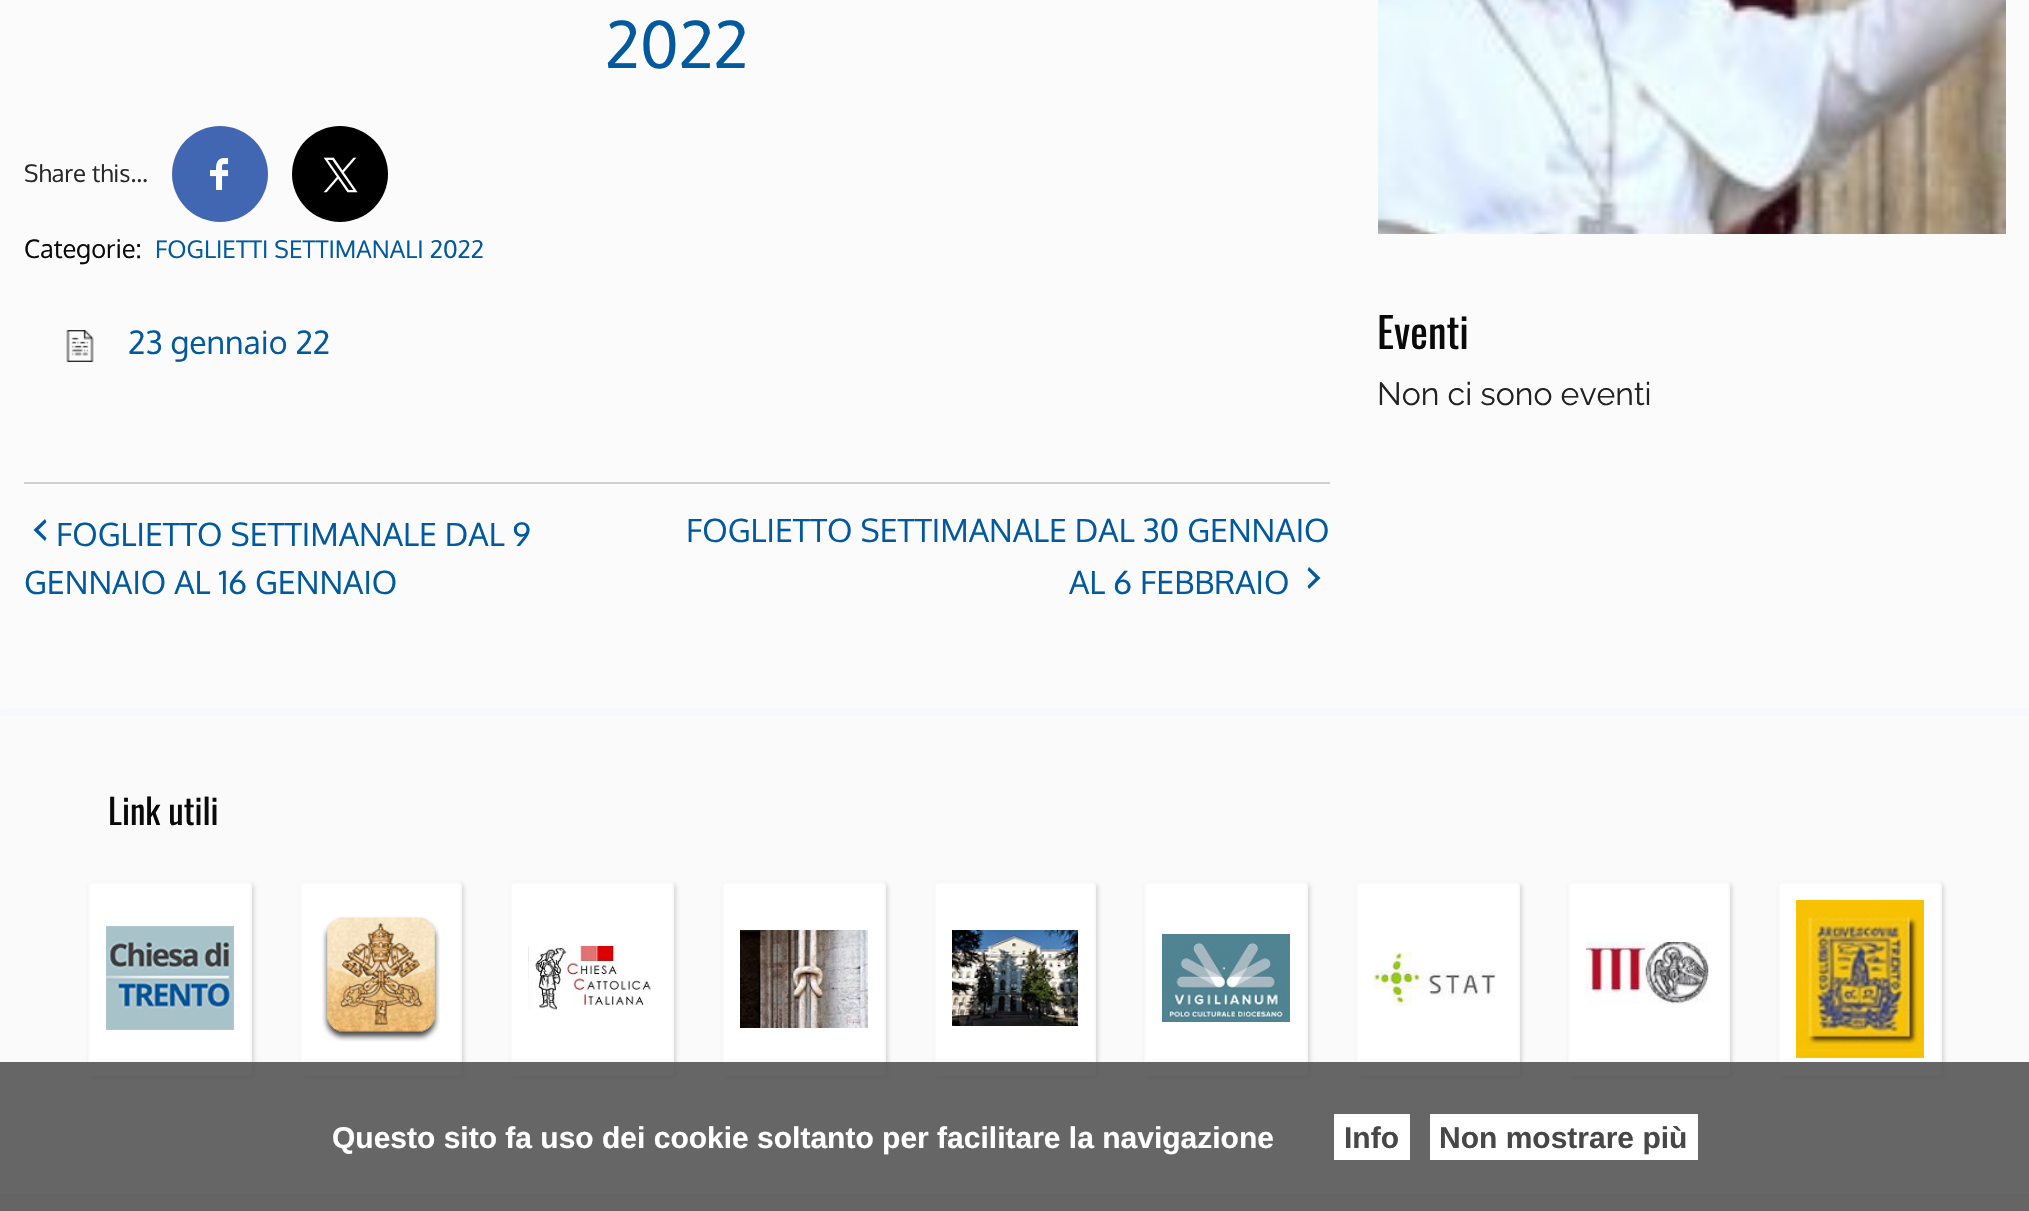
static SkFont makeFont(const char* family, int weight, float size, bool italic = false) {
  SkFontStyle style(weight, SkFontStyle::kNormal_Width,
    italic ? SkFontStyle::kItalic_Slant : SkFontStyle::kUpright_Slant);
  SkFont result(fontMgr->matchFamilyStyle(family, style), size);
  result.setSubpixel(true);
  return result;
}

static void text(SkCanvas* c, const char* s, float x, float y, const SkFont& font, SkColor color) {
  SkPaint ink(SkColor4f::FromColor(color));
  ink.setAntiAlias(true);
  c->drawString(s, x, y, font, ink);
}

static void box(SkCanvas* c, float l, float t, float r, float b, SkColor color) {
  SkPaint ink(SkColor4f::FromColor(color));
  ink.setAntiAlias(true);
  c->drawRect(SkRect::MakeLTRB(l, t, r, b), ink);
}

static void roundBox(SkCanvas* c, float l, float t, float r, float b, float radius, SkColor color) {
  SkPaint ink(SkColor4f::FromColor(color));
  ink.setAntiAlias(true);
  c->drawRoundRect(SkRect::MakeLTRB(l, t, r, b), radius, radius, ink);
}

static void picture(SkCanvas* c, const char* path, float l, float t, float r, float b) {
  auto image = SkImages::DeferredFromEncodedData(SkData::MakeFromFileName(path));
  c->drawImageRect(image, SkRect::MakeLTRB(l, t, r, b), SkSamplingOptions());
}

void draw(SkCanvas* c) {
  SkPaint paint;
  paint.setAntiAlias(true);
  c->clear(0xffededed);
  box(c, 0, 0, 2029, 710, 0xfffbfbfb);
  SkFont face1 = makeFont("Oxygen", 400, 64);
  text(c, "2022", 605, 68, face1, 0xff02599d);
  SkFont face2 = makeFont("Oxygen", 400, 24);
  text(c, "Share this…", 24, 182, face2, 0xff272727);
  paint.setColor(0xff4267b2);
  c->drawCircle(220, 174, 48, paint);
  picture(c, "img_01.png", 210, 158, 229, 190);
  paint.setColor(0xff000000);
  c->drawCircle(340, 174, 48, paint);
  picture(c, "img_02.png", 323, 157, 358, 193);
  SkFont face3 = makeFont("Oxygen", 400, 25.5f);
  text(c, "Categorie:", 24, 258, face3, 0xff0a0a0a);
  SkFont face4 = makeFont("Oxygen", 400, 24.25f);
  text(c, "FOGLIETTI SETTIMANALI 2022", 155, 258, face4, 0xff02599d);
  picture(c, "img_03.png", 66, 330, 94, 362);
  SkFont face5 = makeFont("Oxygen", 400, 32);
  text(c, "23 gennaio 22", 128, 354, face5, 0xff02599d);
  box(c, 24, 482, 1330, 484, 0xffd0d0d0);
  text(c, "FOGLIETTO SETTIMANALE DAL 9", 56, 546, face5, 0xff02599d);
  paint.setColor(0xff02599d);
  c->drawPath(SkPathBuilder().moveTo(46.5f, 522).lineTo(38.5f, 530).lineTo(46.5f, 538).lineTo(45, 541).lineTo(33.5f, 530).lineTo(45, 519).close().detach(), paint);
  text(c, "GENNAIO AL 16 GENNAIO", 24, 594, face5, 0xff02599d);
  text(c, "FOGLIETTO SETTIMANALE DAL 30 GENNAIO", 686, 542, face5, 0xff02599d);
  text(c, "AL 6 FEBBRAIO", 1069, 594, face5, 0xff02599d);
  c->drawPath(SkPathBuilder().moveTo(1307.5f, 586).lineTo(1315.5f, 578).lineTo(1307.5f, 570).lineTo(1309, 567).lineTo(1320.5f, 578).lineTo(1309, 589).close().detach(), paint);
  picture(c, "img_04.png", 1378, 0, 2006, 234);
  SkFont face6 = makeFont("Oswald", 400, 42);
  text(c, "Eventi", 1377, 349, face6, 0xff0a0a0a);
  SkFont face7 = makeFont("Raleway", 400, 32);
  text(c, "Non ci sono eventi", 1377, 405, face7, 0xff212121);
  paint.setColor(0x33646464);
  paint.setMaskFilter(SkMaskFilter::MakeBlur(kNormal_SkBlurStyle, 2));
  c->drawRect(SkRect::MakeLTRB(2, 712, 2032, 1196), paint);
  paint.setMaskFilter(nullptr);
  box(c, 0, 716, 2029, 1194, 0xfffafafa);
  box(c, 0, 710, 2029, 716, 0xfff7f7ff);
  SkFont face8 = makeFont("Oswald", 400, 35);
  text(c, "Link utili", 108, 825, face8, 0xff0a0a0a);
  paint.setColor(0x40646464);
  paint.setMaskFilter(SkMaskFilter::MakeBlur(kNormal_SkBlurStyle, 2));
  c->drawRoundRect(SkRect::MakeLTRB(90, 884, 254, 1078), 4, 4, paint);
  paint.setMaskFilter(nullptr);
  roundBox(c, 88, 882, 252, 1076, 4, 0xffffffff);
  paint.setStyle(SkPaint::kStroke_Style);
  paint.setStrokeWidth(2);
  paint.setColor(0x17c8c8c8);
  c->drawRoundRect(SkRect::MakeLTRB(89, 883, 251, 1075), 3, 3, paint);
  picture(c, "img_05.png", 106, 926, 234, 1030);
  paint.setStyle(SkPaint::kFill_Style);
  paint.setColor(0x40646464);
  paint.setMaskFilter(SkMaskFilter::MakeBlur(kNormal_SkBlurStyle, 2));
  c->drawRoundRect(SkRect::MakeLTRB(302, 884, 464, 1078), 4, 4, paint);
  paint.setMaskFilter(nullptr);
  roundBox(c, 300, 882, 462, 1076, 4, 0xffffffff);
  paint.setStyle(SkPaint::kStroke_Style);
  paint.setColor(0x17c8c8c8);
  c->drawRoundRect(SkRect::MakeLTRB(301, 883, 461, 1075), 3, 3, paint);
  picture(c, "img_06.png", 322, 916, 440, 1042);
  paint.setStyle(SkPaint::kFill_Style);
  paint.setColor(0x40646464);
  paint.setMaskFilter(SkMaskFilter::MakeBlur(kNormal_SkBlurStyle, 2));
  c->drawRoundRect(SkRect::MakeLTRB(512, 884, 676, 1078), 4, 4, paint);
  paint.setMaskFilter(nullptr);
  roundBox(c, 510, 882, 674, 1076, 4, 0xffffffff);
  paint.setStyle(SkPaint::kStroke_Style);
  paint.setColor(0x17c8c8c8);
  c->drawRoundRect(SkRect::MakeLTRB(511, 883, 673, 1075), 3, 3, paint);
  picture(c, "img_07.png", 528, 946, 652, 1010);
  paint.setStyle(SkPaint::kFill_Style);
  paint.setColor(0x40646464);
  paint.setMaskFilter(SkMaskFilter::MakeBlur(kNormal_SkBlurStyle, 2));
  c->drawRoundRect(SkRect::MakeLTRB(724, 884, 888, 1078), 4, 4, paint);
  paint.setMaskFilter(nullptr);
  roundBox(c, 722, 882, 886, 1076, 4, 0xffffffff);
  paint.setStyle(SkPaint::kStroke_Style);
  paint.setColor(0x17c8c8c8);
  c->drawRoundRect(SkRect::MakeLTRB(723, 883, 885, 1075), 3, 3, paint);
  picture(c, "img_08.png", 740, 930, 868, 1028);
  paint.setStyle(SkPaint::kFill_Style);
  paint.setColor(0x40646464);
  paint.setMaskFilter(SkMaskFilter::MakeBlur(kNormal_SkBlurStyle, 2));
  c->drawRoundRect(SkRect::MakeLTRB(936, 884, 1098, 1078), 4, 4, paint);
  paint.setMaskFilter(nullptr);
  roundBox(c, 934, 882, 1096, 1076, 4, 0xffffffff);
  paint.setStyle(SkPaint::kStroke_Style);
  paint.setColor(0x17c8c8c8);
  c->drawRoundRect(SkRect::MakeLTRB(935, 883, 1095, 1075), 3, 3, paint);
  picture(c, "img_09.png", 952, 930, 1078, 1026);
  paint.setStyle(SkPaint::kFill_Style);
  paint.setColor(0x40646464);
  paint.setMaskFilter(SkMaskFilter::MakeBlur(kNormal_SkBlurStyle, 2));
  c->drawRoundRect(SkRect::MakeLTRB(1146, 884, 1310, 1078), 4, 4, paint);
  paint.setMaskFilter(nullptr);
  roundBox(c, 1144, 882, 1308, 1076, 4, 0xffffffff);
  paint.setStyle(SkPaint::kStroke_Style);
  paint.setColor(0x17c8c8c8);
  c->drawRoundRect(SkRect::MakeLTRB(1145, 883, 1307, 1075), 3, 3, paint);
  picture(c, "img_10.png", 1162, 934, 1290, 1022);
  paint.setStyle(SkPaint::kFill_Style);
  paint.setColor(0x40646464);
  paint.setMaskFilter(SkMaskFilter::MakeBlur(kNormal_SkBlurStyle, 2));
  c->drawRoundRect(SkRect::MakeLTRB(1358, 884, 1522, 1078), 4, 4, paint);
  paint.setMaskFilter(nullptr);
  roundBox(c, 1356, 882, 1520, 1076, 4, 0xffffffff);
  paint.setStyle(SkPaint::kStroke_Style);
  paint.setColor(0x17c8c8c8);
  c->drawRoundRect(SkRect::MakeLTRB(1357, 883, 1519, 1075), 3, 3, paint);
  picture(c, "img_11.png", 1374, 952, 1496, 1006);
  paint.setStyle(SkPaint::kFill_Style);
  paint.setColor(0x40646464);
  paint.setMaskFilter(SkMaskFilter::MakeBlur(kNormal_SkBlurStyle, 2));
  c->drawRoundRect(SkRect::MakeLTRB(1570, 884, 1732, 1078), 4, 4, paint);
  paint.setMaskFilter(nullptr);
  roundBox(c, 1568, 882, 1730, 1076, 4, 0xffffffff);
  paint.setStyle(SkPaint::kStroke_Style);
  paint.setColor(0x17c8c8c8);
  c->drawRoundRect(SkRect::MakeLTRB(1569, 883, 1729, 1075), 3, 3, paint);
  picture(c, "img_12.png", 1586, 942, 1709, 1004);
  paint.setStyle(SkPaint::kFill_Style);
  paint.setColor(0x40646464);
  paint.setMaskFilter(SkMaskFilter::MakeBlur(kNormal_SkBlurStyle, 2));
  c->drawRoundRect(SkRect::MakeLTRB(1780, 884, 1944, 1078), 4, 4, paint);
  paint.setMaskFilter(nullptr);
  roundBox(c, 1778, 882, 1942, 1076, 4, 0xffffffff);
  paint.setStyle(SkPaint::kStroke_Style);
  paint.setColor(0x17c8c8c8);
  c->drawRoundRect(SkRect::MakeLTRB(1779, 883, 1941, 1075), 3, 3, paint);
  picture(c, "img_13.png", 1796, 900, 1924, 1058);
  box(c, 0, 1062, 2029, 1211, 0xe6555555);
  SkFont face9 = makeFont("Liberation Sans", 700, 30);
  text(c, "Questo sito fa uso dei cookie soltanto per facilitare la navigazione", 332, 1148, face9, 0xffffffff);
  box(c, 1334, 1114, 1410, 1160, 0xffffffff);
  text(c, "Info", 1344, 1148, face9, 0xff474747);
  box(c, 1430, 1114, 1698, 1160, 0xffffffff);
  text(c, "Non mostrare più", 1439, 1148, face9, 0xff474747);
}
